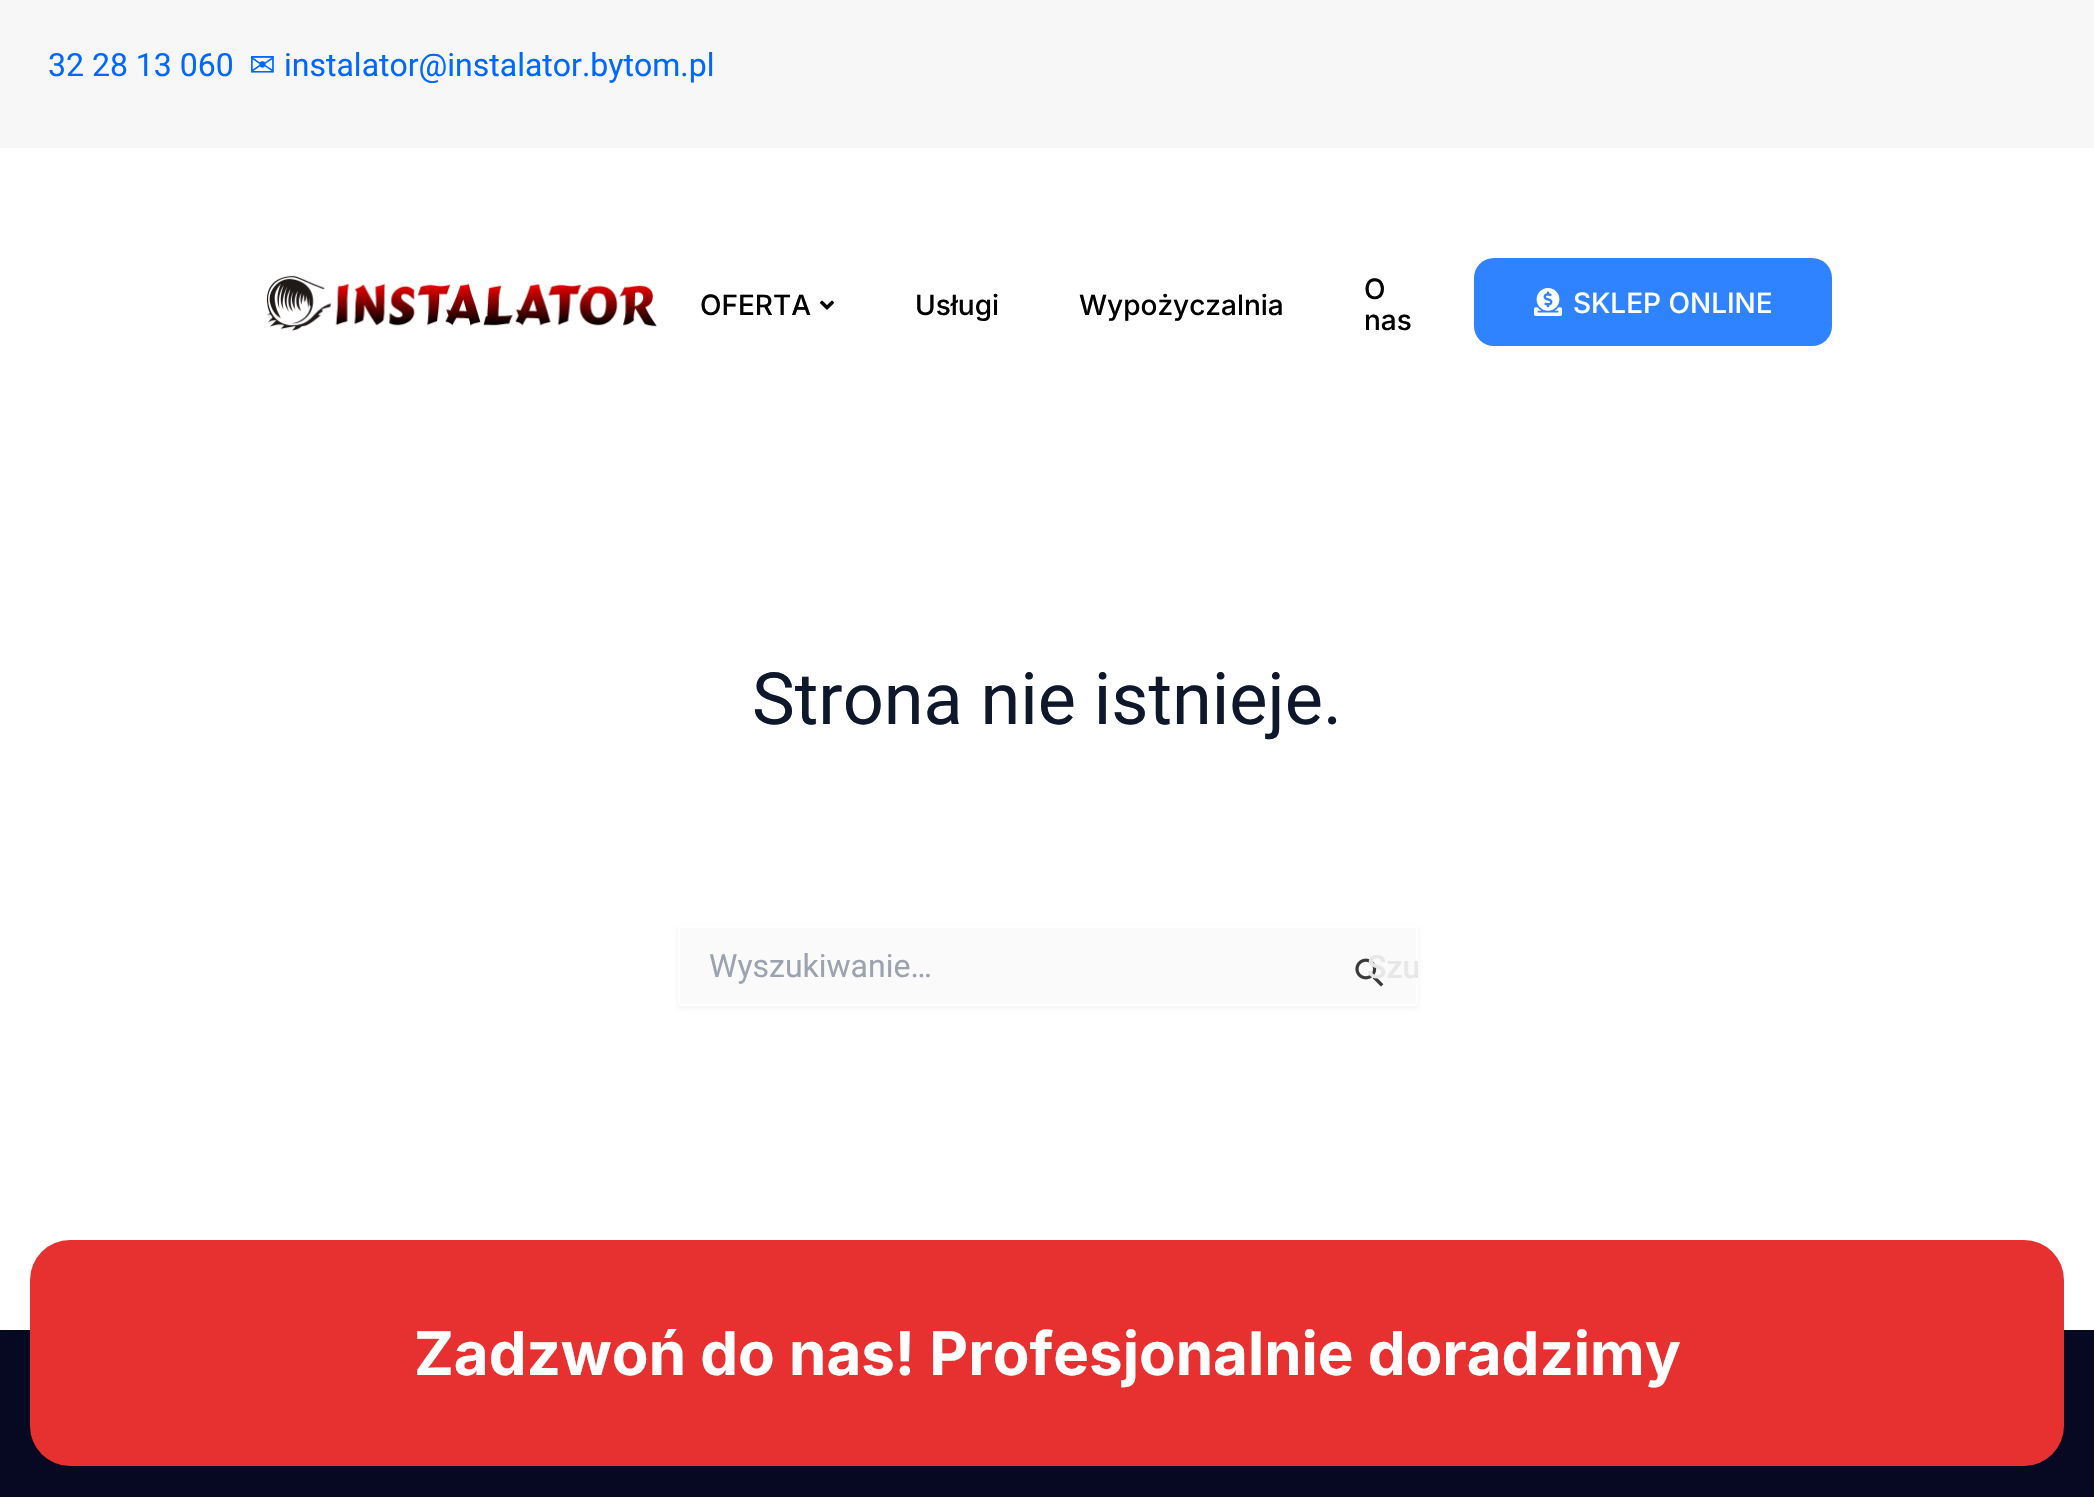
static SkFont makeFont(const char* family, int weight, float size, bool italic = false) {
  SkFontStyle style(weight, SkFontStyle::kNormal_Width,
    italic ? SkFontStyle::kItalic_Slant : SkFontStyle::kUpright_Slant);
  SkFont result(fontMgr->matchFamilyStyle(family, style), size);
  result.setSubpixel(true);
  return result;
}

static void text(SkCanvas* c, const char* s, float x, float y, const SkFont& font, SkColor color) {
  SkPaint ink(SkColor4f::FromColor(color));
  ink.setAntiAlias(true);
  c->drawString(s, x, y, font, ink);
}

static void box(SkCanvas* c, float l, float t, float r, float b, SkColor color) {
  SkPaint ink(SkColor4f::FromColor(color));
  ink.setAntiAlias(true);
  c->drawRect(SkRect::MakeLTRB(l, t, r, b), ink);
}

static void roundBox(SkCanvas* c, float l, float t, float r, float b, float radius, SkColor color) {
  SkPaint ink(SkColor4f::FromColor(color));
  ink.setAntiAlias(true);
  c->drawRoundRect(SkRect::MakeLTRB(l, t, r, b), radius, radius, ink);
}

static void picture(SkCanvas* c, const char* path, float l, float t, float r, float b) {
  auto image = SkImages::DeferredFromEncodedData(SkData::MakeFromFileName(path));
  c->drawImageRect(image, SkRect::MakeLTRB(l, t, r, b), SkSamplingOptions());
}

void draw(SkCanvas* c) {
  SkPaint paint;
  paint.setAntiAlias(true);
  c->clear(0xffffffff);
  box(c, 0, 0, 2094, 148, 0xfff7f7f7);
  SkFont face1 = makeFont("Roboto", 400, 32);
  text(c, "32 28 13 060", 48, 76, face1, 0xff0067ff);
  SkFont face2 = makeFont("DejaVu Sans", 400, 32);
  text(c, "✉", 249, 76, face2, 0xff0067ff);
  text(c, "instalator@instalator.bytom.pl", 284, 76, face1, 0xff0067ff);
  picture(c, "img_01.png", 266, 275, 657, 331);
  SkFont face3 = makeFont("Inter", 500, 28);
  text(c, "OFERTA", 700, 315, face3, 0xff000000);
  picture(c, "img_02.png", 820, 300, 834, 310);
  text(c, "Usługi", 915, 315, face3, 0xff000000);
  text(c, "Wypożyczalnia", 1079, 315, face3, 0xff000000);
  text(c, "O", 1364, 299, face3, 0xff000000);
  text(c, "nas", 1364, 330, face3, 0xff000000);
  roundBox(c, 1474, 258, 1832, 346, 20, 0xff3083ff);
  picture(c, "img_03.png", 1534, 288, 1562, 316);
  text(c, "SKLEP ONLINE", 1573, 313, face3, 0xffffffff);
  SkFont face4 = makeFont("Roboto", 400, 72);
  text(c, "Strona nie istnieje.", 752, 724, face4, 0xff0f172a);
  paint.setColor(0x0d000000);
  paint.setMaskFilter(SkMaskFilter::MakeBlur(kNormal_SkBlurStyle, 2));
  c->drawRoundRect(SkRect::MakeLTRB(678, 928, 1418, 1008), 4, 4, paint);
  paint.setMaskFilter(nullptr);
  paint.setColor(0xfffafafa);
  c->drawRoundRect(SkRect::MakeLTRB(679, 927, 1417, 1005), 3, 3, paint);
  paint.setStyle(SkPaint::kStroke_Style);
  paint.setStrokeWidth(2);
  paint.setColor(0xfffeffff);
  c->drawRoundRect(SkRect::MakeLTRB(679, 927, 1417, 1005), 3, 3, paint);
  text(c, "Wyszukiwanie…", 709, 977, face1, 0xff9ca3af);
  picture(c, "img_04.png", 1355, 958, 1384, 987);
  c->save();
  c->clipPath(SkPathBuilder().moveTo(1332, 926).lineTo(1414, 926).cubicTo(1416, 926, 1418, 928, 1418, 930).lineTo(1418, 1006).cubicTo(1418, 1008, 1416, 1010, 1414, 1010).lineTo(1332, 1010).cubicTo(1330, 1010, 1328, 1008, 1328, 1006).lineTo(1328, 930).cubicTo(1328, 928, 1330, 926, 1332, 926).close().detach(), true);
  SkFont face5 = makeFont("Roboto", 500, 32);
  text(c, "Szu", 1367, 978, face5, 0xffe7e7e7);
  c->restore();
  box(c, 0, 1330, 2094, 1497, 0xff060921);
  roundBox(c, 30, 1240, 2064, 1466, 40, 0xffe73030);
  SkFont face6 = makeFont("Inter", 700, 60);
  text(c, "Zadzwoń do nas! Profesjonalnie doradzimy", 414, 1375, face6, 0xffffffff);
}
